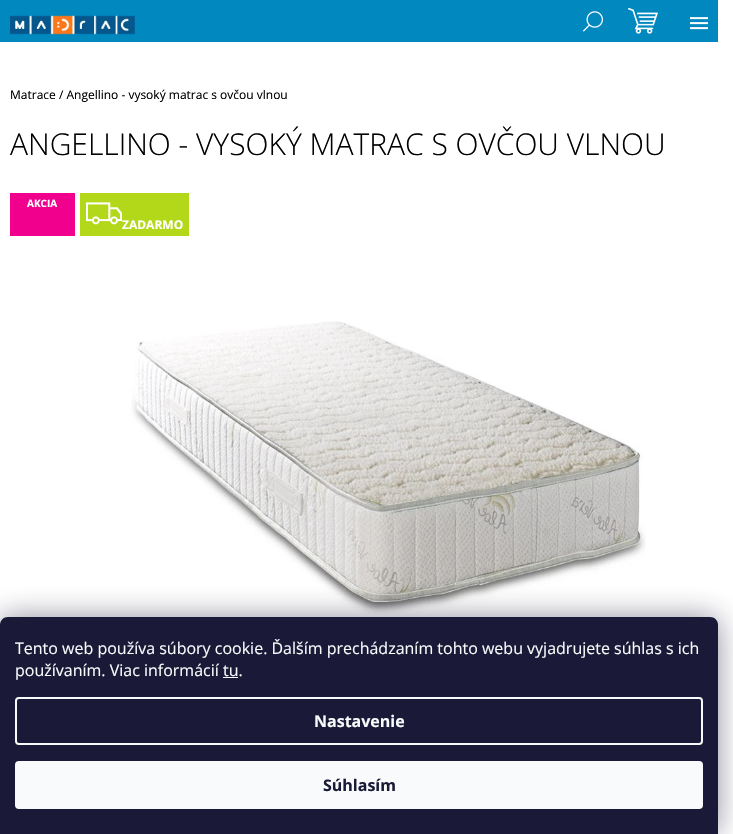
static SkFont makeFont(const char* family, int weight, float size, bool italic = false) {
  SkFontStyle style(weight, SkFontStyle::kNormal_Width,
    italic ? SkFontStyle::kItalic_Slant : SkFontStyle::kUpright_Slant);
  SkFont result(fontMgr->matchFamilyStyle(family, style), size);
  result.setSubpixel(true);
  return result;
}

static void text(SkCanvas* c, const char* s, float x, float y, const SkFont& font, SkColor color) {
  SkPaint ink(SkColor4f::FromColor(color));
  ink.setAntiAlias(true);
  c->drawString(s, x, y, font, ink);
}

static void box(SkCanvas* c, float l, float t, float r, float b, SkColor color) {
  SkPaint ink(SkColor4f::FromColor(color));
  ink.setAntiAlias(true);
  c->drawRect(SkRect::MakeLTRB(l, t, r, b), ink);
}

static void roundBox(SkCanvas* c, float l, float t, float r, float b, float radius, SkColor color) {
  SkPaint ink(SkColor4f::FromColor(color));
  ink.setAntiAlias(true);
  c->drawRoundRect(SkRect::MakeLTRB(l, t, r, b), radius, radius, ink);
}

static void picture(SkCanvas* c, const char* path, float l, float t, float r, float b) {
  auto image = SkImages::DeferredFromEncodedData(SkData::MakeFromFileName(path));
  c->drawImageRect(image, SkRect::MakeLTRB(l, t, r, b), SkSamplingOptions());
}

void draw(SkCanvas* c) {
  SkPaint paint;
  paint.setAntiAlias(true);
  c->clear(0xffffffff);
  box(c, 0, 0, 718, 42, 0xff0088bf);
  picture(c, "img_01.png", 10, 15, 135, 35);
  picture(c, "img_02.png", 583, 11, 603, 32);
  picture(c, "img_03.png", 628, 8, 658, 34);
  picture(c, "img_04.png", 690, 17, 708, 30);
  SkFont face1 = makeFont("Open Sans", 400, 12);
  text(c, "Matrace / Angellino - vysoký matrac s ovčou vlnou", 10, 99, face1, 0xff000000);
  SkFont face2 = makeFont("Open Sans", 300, 30);
  text(c, "ANGELLINO - VYSOKÝ MATRAC S OVČOU VLNOU", 10, 155, face2, 0xff000000);
  box(c, 10, 193, 75, 236, 0xfff1008d);
  SkFont face3 = makeFont("Open Sans", 700, 10);
  text(c, "AKCIA", 27, 207, face3, 0xffffffff);
  box(c, 80, 193, 189, 236, 0xffb3d81a);
  picture(c, "img_05.png", 86, 202, 122, 225);
  SkFont face4 = makeFont("Open Sans", 700, 12);
  text(c, "ZADARMO", 122, 229, face4, 0xffffffff);
  picture(c, "img_06.png", 131, 321, 646, 615);
  paint.setColor(0x801b1939);
  paint.setMaskFilter(SkMaskFilter::MakeBlur(kNormal_SkBlurStyle, 15));
  c->drawRoundRect(SkRect::MakeLTRB(0, 617, 718, 834), 8, 8, paint);
  paint.setMaskFilter(nullptr);
  paint.setColor(0xff1a1937);
  c->drawPath(SkPathBuilder().moveTo(8, 617).lineTo(710, 617).cubicTo(714.5f, 617, 718, 620.5f, 718, 625).lineTo(718, 834).lineTo(0, 834).lineTo(0, 625).cubicTo(0, 620.5f, 3.5f, 617, 8, 617).close().detach(), paint);
  SkFont face5 = makeFont("Open Sans", 400, 16);
  text(c, "Tento web používa súbory cookie. Ďalším prechádzaním tohto webu vyjadrujete súhlas s ich", 15, 654, face5, 0xfff8fafb);
  text(c, "používaním. Viac informácií tu.", 15, 676, face5, 0xfff8fafb);
  box(c, 223, 677, 238, 678, 0xfff8fafb);
  paint.setStyle(SkPaint::kStroke_Style);
  paint.setStrokeWidth(2);
  paint.setColor(0xfff8fafb);
  c->drawRoundRect(SkRect::MakeLTRB(16, 698, 702, 744), 3, 3, paint);
  SkFont face6 = makeFont("Open Sans", 700, 16);
  text(c, "Nastavenie", 314, 727, face6, 0xfff8fafb);
  roundBox(c, 15, 761, 703, 809, 4, 0xfff8fafb);
  text(c, "Súhlasím", 323, 791, face6, 0xff1a1937);
}
